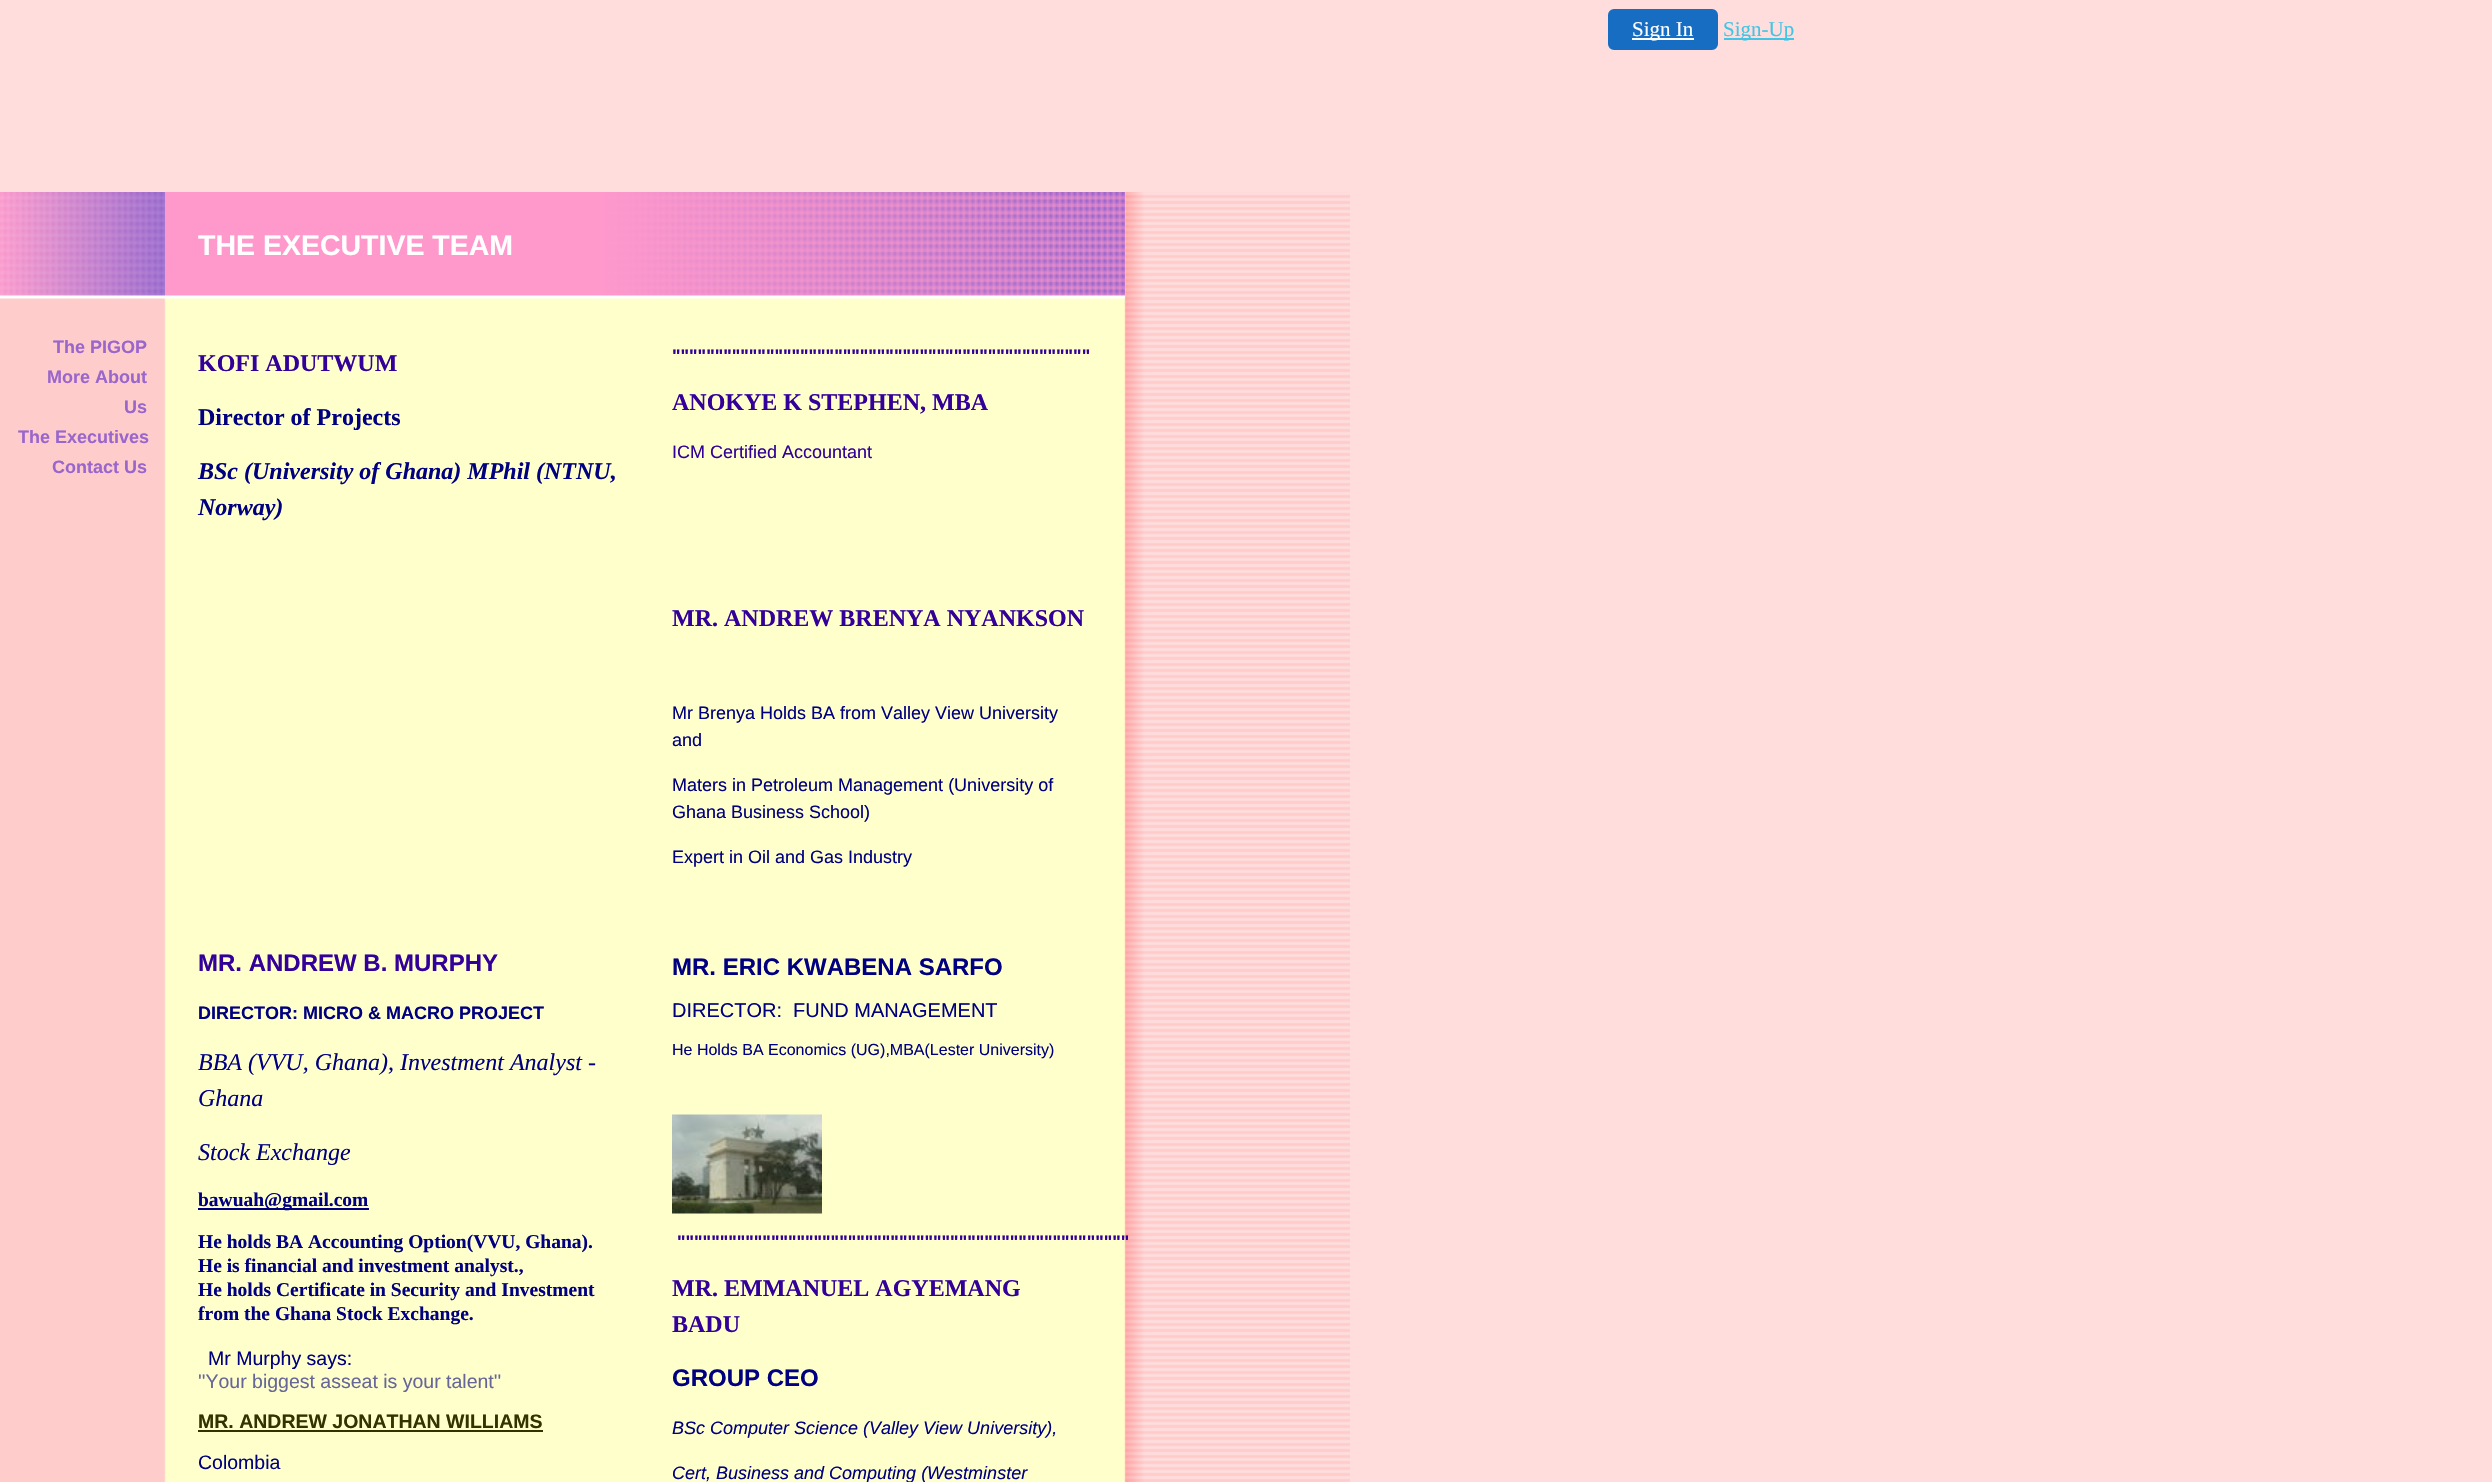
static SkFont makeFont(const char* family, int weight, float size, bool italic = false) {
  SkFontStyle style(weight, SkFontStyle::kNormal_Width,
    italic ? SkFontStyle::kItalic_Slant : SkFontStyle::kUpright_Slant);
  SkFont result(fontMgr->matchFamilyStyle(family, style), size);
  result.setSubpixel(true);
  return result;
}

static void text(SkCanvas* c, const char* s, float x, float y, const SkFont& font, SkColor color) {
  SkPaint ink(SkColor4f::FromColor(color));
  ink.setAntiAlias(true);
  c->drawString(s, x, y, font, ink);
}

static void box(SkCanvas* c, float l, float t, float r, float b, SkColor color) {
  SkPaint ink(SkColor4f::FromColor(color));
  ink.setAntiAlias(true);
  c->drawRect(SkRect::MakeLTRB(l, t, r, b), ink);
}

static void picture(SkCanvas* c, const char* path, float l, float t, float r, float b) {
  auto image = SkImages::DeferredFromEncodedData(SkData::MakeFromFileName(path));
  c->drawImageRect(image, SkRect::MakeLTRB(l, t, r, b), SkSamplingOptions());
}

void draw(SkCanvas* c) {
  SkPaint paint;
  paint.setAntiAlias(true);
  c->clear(0xffffdddd);
  paint.setColor(0xff166dc2);
  c->drawRoundRect(SkRect::MakeLTRB(1609, 10, 1717, 49), 5, 5, paint);
  paint.setStyle(SkPaint::kStroke_Style);
  paint.setStrokeWidth(2);
  c->drawRoundRect(SkRect::MakeLTRB(1609, 10, 1717, 49), 5, 5, paint);
  box(c, 1632, 38, 1694, 40, 0xffffffff);
  SkFont face1 = makeFont("Liberation Serif", 400, 21);
  text(c, "Sign In", 1632, 36, face1, 0xffffffff);
  box(c, 1724, 38, 1794, 40, 0xff41c5e4);
  text(c, "Sign-Up", 1723, 36, face1, 0xff41c5e4);
  picture(c, "img_01.png", 0, 192, 1350, 1482);
  picture(c, "img_02.png", 165, 192, 1125, 299);
  SkFont face2 = makeFont("Liberation Sans", 700, 28.5f);
  text(c, "THE EXECUTIVE TEAM", 198, 255, face2, 0xffffffff);
  picture(c, "img_03.png", 0, 192, 165, 299);
  SkFont face3 = makeFont("Liberation Sans", 700, 18);
  text(c, "The PIGOP", 53, 353, face3, 0xff9966cc);
  text(c, "More About", 47, 383, face3, 0xff9966cc);
  text(c, "Us", 124, 413, face3, 0xff9966cc);
  text(c, "The Executives", 18, 443, face3, 0xff9966cc);
  text(c, "Contact Us", 52, 473, face3, 0xff9966cc);
  SkFont face4 = makeFont("Liberation Serif", 700, 24);
  text(c, "KOFI ADUTWUM", 198, 371, face4, 0xff330099);
  text(c, "Director of Projects", 198, 425, face4, 0xff000080);
  SkFont face5 = makeFont("Liberation Serif", 700, 24, true);
  text(c, "BSc (University of Ghana) MPhil (NTNU,", 198, 479, face5, 0xff000080);
  text(c, "Norway)", 198, 515, face5, 0xff000080);
  text(c, "\"\"\"\"\"\"\"\"\"\"\"\"\"\"\"\"\"\"\"\"\"\"\"\"\"\"\"\"\"\"\"\"\"\"\"\"\"\"\"\"\"\"\"\"\"\"\"\"\"", 672, 362, face3, 0xff330099);
  text(c, "ANOKYE K STEPHEN, MBA", 672, 410, face4, 0xff330099);
  SkFont face6 = makeFont("Liberation Sans", 400, 18);
  text(c, "ICM Certified Accountant", 672, 458, face6, 0xff330099);
  text(c, "MR. ANDREW BRENYA NYANKSON", 672, 626, face4, 0xff330099);
  text(c, "Mr Brenya Holds BA from Valley View University", 672, 719, face6, 0xff000080);
  text(c, "and", 672, 746, face6, 0xff000080);
  text(c, "Maters in Petroleum Management (University of", 672, 791, face6, 0xff000080);
  text(c, "Ghana Business School)", 672, 818, face6, 0xff000080);
  text(c, "Expert in Oil and Gas Industry", 672, 863, face6, 0xff000080);
  SkFont face7 = makeFont("Liberation Sans", 700, 24);
  text(c, "MR. ANDREW B. MURPHY", 198, 971, face7, 0xff330099);
  text(c, "DIRECTOR: MICRO & MACRO PROJECT", 198, 1019, face3, 0xff000080);
  SkFont face8 = makeFont("Liberation Serif", 400, 24, true);
  text(c, "BBA (VVU, Ghana), Investment Analyst -", 198, 1070, face8, 0xff000080);
  text(c, "Ghana", 198, 1106, face8, 0xff000080);
  text(c, "Stock Exchange", 198, 1160, face8, 0xff000080);
  box(c, 198, 1208, 369, 1210, 0xff000080);
  SkFont face9 = makeFont("Liberation Serif", 700, 19.5f);
  text(c, "bawuah@gmail.com", 198, 1206, face9, 0xff000080);
  text(c, "He holds BA Accounting Option(VVU, Ghana).", 198, 1248, face9, 0xff000080);
  text(c, "He is financial and investment analyst.,", 198, 1272, face9, 0xff000080);
  text(c, "He holds Certificate in Security and Investment", 198, 1296, face9, 0xff000080);
  text(c, "from the Ghana Stock Exchange.", 198, 1320, face9, 0xff000080);
  SkFont face10 = makeFont("Liberation Sans", 400, 19.5f);
  text(c, "Mr Murphy says:", 208, 1365, face10, 0xff000080);
  text(c, "''Your biggest asseat is your talent''", 198, 1388, face10, 0xff666699);
  text(c, "MR. ERIC KWABENA SARFO", 672, 975, face7, 0xff000080);
  SkFont face11 = makeFont("Liberation Sans", 400, 20);
  text(c, "DIRECTOR:  FUND MANAGEMENT", 672, 1017, face11, 0xff000080);
  SkFont face12 = makeFont("Liberation Sans", 400, 16);
  text(c, "He Holds BA Economics (UG),MBA(Lester University)", 672, 1055, face12, 0xff000080);
  picture(c, "img_04.png", 672, 1114, 822, 1214);
  SkFont face13 = makeFont("Liberation Sans", 700, 19.5f);
  text(c, "MR. ANDREW JONATHAN WILLIAMS", 198, 1428, face13, 0xff333300);
  box(c, 198, 1430, 543, 1432, 0xff333300);
  text(c, "Colombia", 198, 1469, face10, 0xff000080);
  text(c, "\"\"\"\"\"\"\"\"\"\"\"\"\"\"\"\"\"\"\"\"\"\"\"\"\"\"\"\"\"\"\"\"\"\"\"\"\"\"\"\"\"\"\"\"\"\"\"\"\"\"\"\"\"", 677, 1248, face3, 0xff330099);
  text(c, "MR. EMMANUEL AGYEMANG", 672, 1296, face4, 0xff330099);
  text(c, "BADU", 672, 1332, face4, 0xff330099);
  text(c, "GROUP CEO", 672, 1386, face7, 0xff000080);
  SkFont face14 = makeFont("Liberation Sans", 400, 18, true);
  text(c, "BSc Computer Science (Valley View University),", 672, 1434, face14, 0xff000080);
  text(c, "Cert, Business and Computing (Westminster", 672, 1479, face14, 0xff000080);
}
